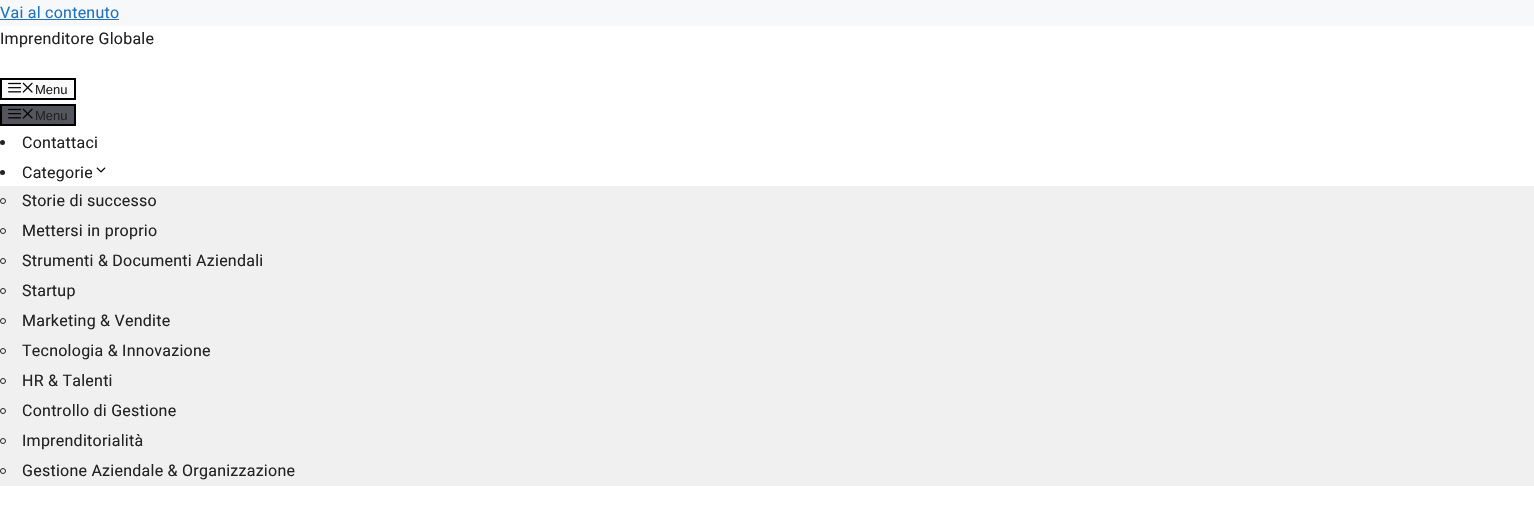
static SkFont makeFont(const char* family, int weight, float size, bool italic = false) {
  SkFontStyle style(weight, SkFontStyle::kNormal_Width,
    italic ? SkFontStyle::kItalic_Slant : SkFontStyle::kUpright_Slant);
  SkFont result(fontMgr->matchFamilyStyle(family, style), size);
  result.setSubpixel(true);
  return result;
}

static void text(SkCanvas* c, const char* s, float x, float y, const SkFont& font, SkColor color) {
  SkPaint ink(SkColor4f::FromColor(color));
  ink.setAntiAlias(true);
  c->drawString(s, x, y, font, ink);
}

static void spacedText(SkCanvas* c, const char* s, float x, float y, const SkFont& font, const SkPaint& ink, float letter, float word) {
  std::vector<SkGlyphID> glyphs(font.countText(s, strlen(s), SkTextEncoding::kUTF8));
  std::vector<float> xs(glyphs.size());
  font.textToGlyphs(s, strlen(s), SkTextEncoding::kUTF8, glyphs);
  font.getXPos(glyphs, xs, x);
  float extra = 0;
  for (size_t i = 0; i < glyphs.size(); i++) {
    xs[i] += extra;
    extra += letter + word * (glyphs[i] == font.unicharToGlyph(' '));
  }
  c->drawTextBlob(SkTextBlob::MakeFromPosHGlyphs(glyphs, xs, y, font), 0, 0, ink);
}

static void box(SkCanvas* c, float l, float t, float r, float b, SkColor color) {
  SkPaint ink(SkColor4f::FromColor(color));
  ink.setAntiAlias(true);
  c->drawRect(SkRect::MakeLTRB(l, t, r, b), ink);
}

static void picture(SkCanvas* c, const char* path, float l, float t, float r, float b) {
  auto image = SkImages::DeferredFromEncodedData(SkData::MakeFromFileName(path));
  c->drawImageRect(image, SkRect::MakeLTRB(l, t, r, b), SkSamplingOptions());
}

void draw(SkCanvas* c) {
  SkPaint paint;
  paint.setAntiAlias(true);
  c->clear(0xfff7f8f9);
  SkFont face1 = makeFont("Roboto", 400, 16);
  paint.setColor(0xff1e73be);
  spacedText(c, "Vai al contenuto", 0, 18, face1, paint, 0.25f, 0);
  box(c, 0, 19, 119, 20, 0xff1e73be);
  box(c, 0, 26, 1534, 512, 0xffffffff);
  paint.setColor(0xff222222);
  spacedText(c, "Imprenditore Globale", 0, 44, face1, paint, 0.25f, 0);
  paint.setColor(0xfffafafa);
  c->drawRect(SkRect::MakeLTRB(1, 79, 75, 99), paint);
  paint.setStyle(SkPaint::kStroke_Style);
  paint.setStrokeWidth(2);
  paint.setColor(0xff000000);
  c->drawRect(SkRect::MakeLTRB(1, 79, 75, 99), paint);
  picture(c, "img_01.png", 8, 82, 21, 93);
  picture(c, "img_02.png", 22, 82, 33, 93);
  SkFont face2 = makeFont("Liberation Sans", 400, 13);
  text(c, "Menu", 35, 94, face2, 0xff222222);
  paint.setStyle(SkPaint::kFill_Style);
  paint.setColor(0xff55555e);
  c->drawRect(SkRect::MakeLTRB(1, 105, 75, 125), paint);
  paint.setStyle(SkPaint::kStroke_Style);
  paint.setColor(0xff000000);
  c->drawRect(SkRect::MakeLTRB(1, 105, 75, 125), paint);
  picture(c, "img_03.png", 8, 108, 21, 119);
  picture(c, "img_04.png", 22, 108, 33, 119);
  text(c, "Menu", 35, 120, face2, 0xff222222);
  paint.setStyle(SkPaint::kFill_Style);
  paint.setColor(0xff222222);
  c->drawCircle(2.5f, 142.5f, 2.5f, paint);
  spacedText(c, "Contattaci", 22, 148, face1, paint, 0.25f, 0);
  c->drawCircle(2.5f, 172.5f, 2.5f, paint);
  spacedText(c, "Categorie", 22, 178, face1, paint, 0.25f, 0);
  picture(c, "img_05.png", 96, 167, 106, 173);
  box(c, 0, 186, 1534, 486, 0xfff0f0f0);
  paint.setStyle(SkPaint::kStroke_Style);
  paint.setStrokeWidth(1);
  c->drawCircle(3, 201, 2.5f, paint);
  paint.setStyle(SkPaint::kFill_Style);
  spacedText(c, "Storie di successo", 22, 206, face1, paint, 0.25f, 0);
  paint.setStyle(SkPaint::kStroke_Style);
  c->drawCircle(3, 231, 2.5f, paint);
  paint.setStyle(SkPaint::kFill_Style);
  spacedText(c, "Mettersi in proprio", 22, 236, face1, paint, 0.25f, 0);
  paint.setStyle(SkPaint::kStroke_Style);
  c->drawCircle(3, 261, 2.5f, paint);
  paint.setStyle(SkPaint::kFill_Style);
  spacedText(c, "Strumenti & Documenti Aziendali", 22, 266, face1, paint, 0.25f, 0);
  paint.setStyle(SkPaint::kStroke_Style);
  c->drawCircle(3, 291, 2.5f, paint);
  paint.setStyle(SkPaint::kFill_Style);
  spacedText(c, "Startup", 22, 296, face1, paint, 0.25f, 0);
  paint.setStyle(SkPaint::kStroke_Style);
  c->drawCircle(3, 321, 2.5f, paint);
  paint.setStyle(SkPaint::kFill_Style);
  spacedText(c, "Marketing & Vendite", 22, 326, face1, paint, 0.25f, 0);
  paint.setStyle(SkPaint::kStroke_Style);
  c->drawCircle(3, 351, 2.5f, paint);
  paint.setStyle(SkPaint::kFill_Style);
  spacedText(c, "Tecnologia & Innovazione", 22, 356, face1, paint, 0.25f, 0);
  paint.setStyle(SkPaint::kStroke_Style);
  c->drawCircle(3, 381, 2.5f, paint);
  paint.setStyle(SkPaint::kFill_Style);
  spacedText(c, "HR & Talenti", 22, 386, face1, paint, 0.25f, 0);
  paint.setStyle(SkPaint::kStroke_Style);
  c->drawCircle(3, 411, 2.5f, paint);
  paint.setStyle(SkPaint::kFill_Style);
  spacedText(c, "Controllo di Gestione", 22, 416, face1, paint, 0.25f, 0);
  paint.setStyle(SkPaint::kStroke_Style);
  c->drawCircle(3, 441, 2.5f, paint);
  paint.setStyle(SkPaint::kFill_Style);
  spacedText(c, "Imprenditorialità", 22, 446, face1, paint, 0.25f, 0);
  paint.setStyle(SkPaint::kStroke_Style);
  c->drawCircle(3, 471, 2.5f, paint);
  paint.setStyle(SkPaint::kFill_Style);
  spacedText(c, "Gestione Aziendale & Organizzazione", 22, 476, face1, paint, 0.25f, 0);
}
